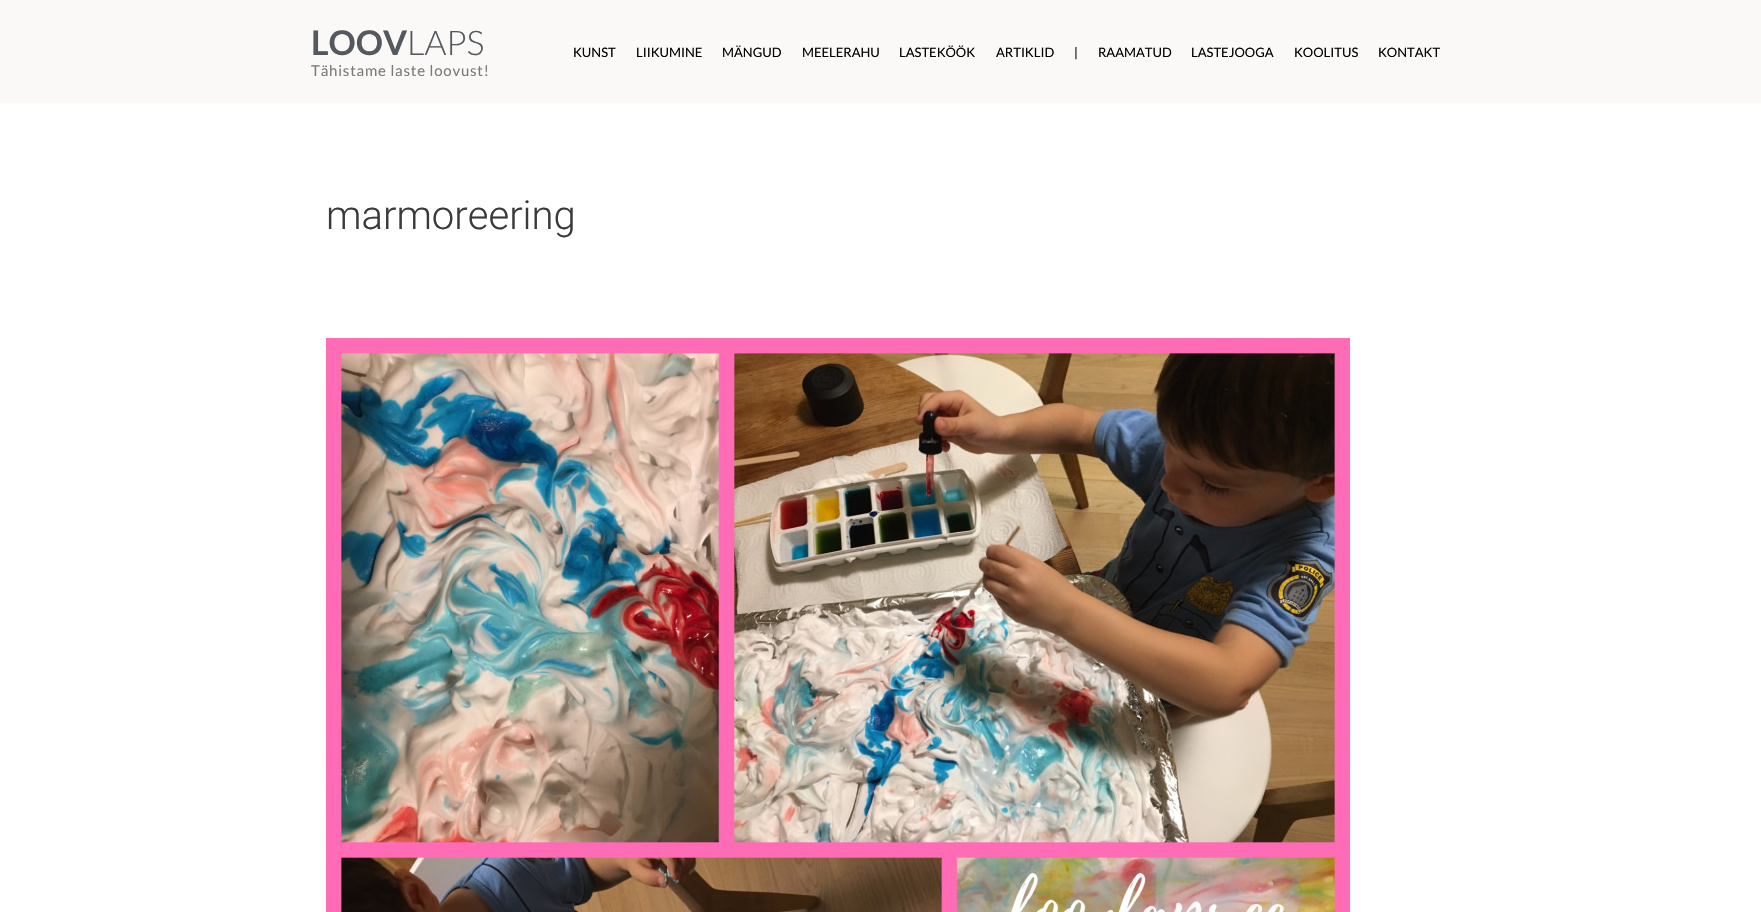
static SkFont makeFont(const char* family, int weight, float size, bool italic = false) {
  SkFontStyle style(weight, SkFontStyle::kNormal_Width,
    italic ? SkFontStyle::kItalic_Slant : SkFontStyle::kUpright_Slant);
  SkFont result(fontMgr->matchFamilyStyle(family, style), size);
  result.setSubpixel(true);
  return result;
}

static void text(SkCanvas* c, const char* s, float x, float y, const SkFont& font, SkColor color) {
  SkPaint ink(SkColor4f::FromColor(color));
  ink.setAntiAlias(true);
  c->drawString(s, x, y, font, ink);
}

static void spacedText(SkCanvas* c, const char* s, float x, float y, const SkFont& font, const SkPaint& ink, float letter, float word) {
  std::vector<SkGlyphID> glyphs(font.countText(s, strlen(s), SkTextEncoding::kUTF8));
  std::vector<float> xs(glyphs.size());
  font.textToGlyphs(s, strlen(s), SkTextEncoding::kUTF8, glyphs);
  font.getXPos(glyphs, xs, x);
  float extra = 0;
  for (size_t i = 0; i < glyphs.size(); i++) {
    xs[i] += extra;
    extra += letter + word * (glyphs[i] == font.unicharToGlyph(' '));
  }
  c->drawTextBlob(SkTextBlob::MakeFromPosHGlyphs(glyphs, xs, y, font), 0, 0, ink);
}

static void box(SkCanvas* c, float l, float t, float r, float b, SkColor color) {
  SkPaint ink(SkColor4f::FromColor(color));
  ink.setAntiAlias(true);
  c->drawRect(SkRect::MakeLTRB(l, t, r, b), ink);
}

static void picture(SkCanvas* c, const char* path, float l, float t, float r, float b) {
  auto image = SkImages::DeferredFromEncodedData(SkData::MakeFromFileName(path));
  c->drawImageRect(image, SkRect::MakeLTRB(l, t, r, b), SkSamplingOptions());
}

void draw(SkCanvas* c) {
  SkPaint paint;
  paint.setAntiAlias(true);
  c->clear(0xffffffff);
  box(c, 0, 0, 1761, 103, 0xfffaf9f7);
  SkFont face1 = makeFont("Lato", 700, 34);
  text(c, "LOOV", 311, 55, face1, 0xff54595f);
  SkFont face2 = makeFont("Lato", 300, 34);
  text(c, "LAPS", 407, 55, face2, 0xff54595f);
  SkFont face3 = makeFont("Lato", 400, 15);
  paint.setColor(0xff7a7a7a);
  spacedText(c, "Tähistame laste loovust!", 311, 76, face3, paint, 0.8f, 0);
  SkFont face4 = makeFont("Lato", 400, 13);
  text(c, "KUNST", 573, 57, face4, 0xff000000);
  text(c, "LIIKUMINE", 636, 57, face4, 0xff000000);
  text(c, "MÄNGUD", 722, 57, face4, 0xff000000);
  text(c, "MEELERAHU", 802, 57, face4, 0xff000000);
  text(c, "LASTEKÖÖK", 899, 57, face4, 0xff000000);
  text(c, "ARTIKLID", 996, 57, face4, 0xff000000);
  text(c, "|", 1074, 57, face4, 0xff000000);
  text(c, "RAAMATUD", 1098, 57, face4, 0xff000000);
  text(c, "LASTEJOOGA", 1191, 57, face4, 0xff000000);
  text(c, "KOOLITUS", 1294, 57, face4, 0xff000000);
  text(c, "KONTAKT", 1378, 57, face4, 0xff000000);
  SkFont face5 = makeFont("Roboto", 300, 40);
  text(c, "marmoreering", 326, 229, face5, 0xff3a3a3a);
  picture(c, "img_01.png", 326, 338, 1350, 912);
}
